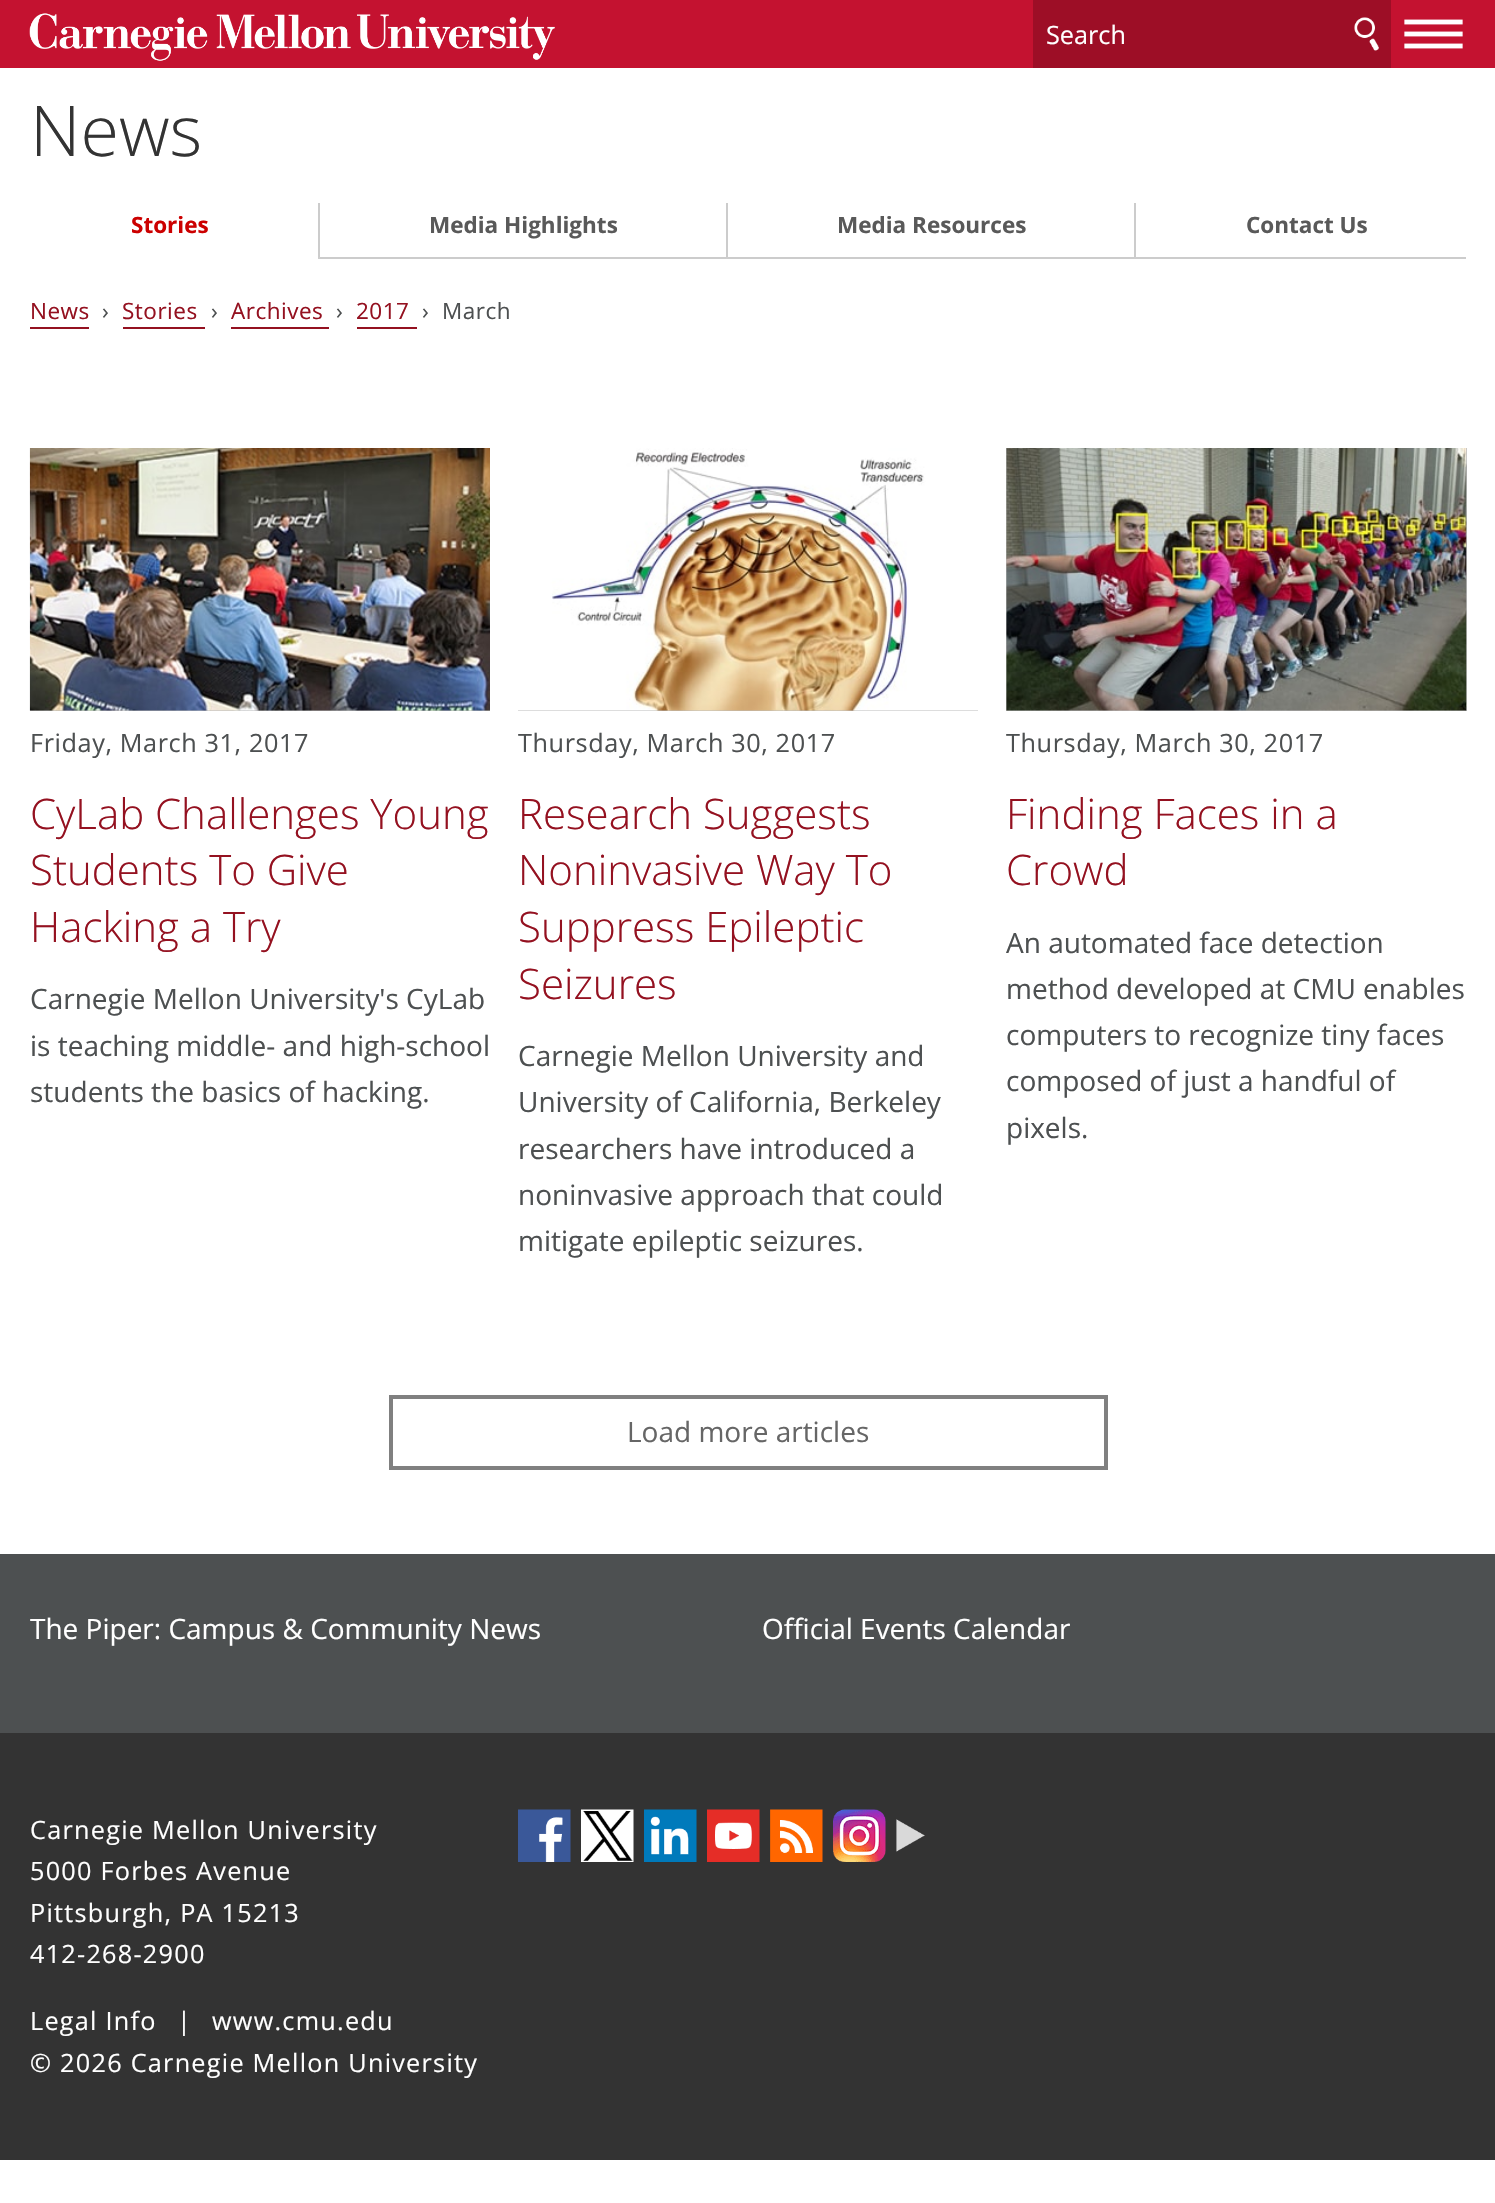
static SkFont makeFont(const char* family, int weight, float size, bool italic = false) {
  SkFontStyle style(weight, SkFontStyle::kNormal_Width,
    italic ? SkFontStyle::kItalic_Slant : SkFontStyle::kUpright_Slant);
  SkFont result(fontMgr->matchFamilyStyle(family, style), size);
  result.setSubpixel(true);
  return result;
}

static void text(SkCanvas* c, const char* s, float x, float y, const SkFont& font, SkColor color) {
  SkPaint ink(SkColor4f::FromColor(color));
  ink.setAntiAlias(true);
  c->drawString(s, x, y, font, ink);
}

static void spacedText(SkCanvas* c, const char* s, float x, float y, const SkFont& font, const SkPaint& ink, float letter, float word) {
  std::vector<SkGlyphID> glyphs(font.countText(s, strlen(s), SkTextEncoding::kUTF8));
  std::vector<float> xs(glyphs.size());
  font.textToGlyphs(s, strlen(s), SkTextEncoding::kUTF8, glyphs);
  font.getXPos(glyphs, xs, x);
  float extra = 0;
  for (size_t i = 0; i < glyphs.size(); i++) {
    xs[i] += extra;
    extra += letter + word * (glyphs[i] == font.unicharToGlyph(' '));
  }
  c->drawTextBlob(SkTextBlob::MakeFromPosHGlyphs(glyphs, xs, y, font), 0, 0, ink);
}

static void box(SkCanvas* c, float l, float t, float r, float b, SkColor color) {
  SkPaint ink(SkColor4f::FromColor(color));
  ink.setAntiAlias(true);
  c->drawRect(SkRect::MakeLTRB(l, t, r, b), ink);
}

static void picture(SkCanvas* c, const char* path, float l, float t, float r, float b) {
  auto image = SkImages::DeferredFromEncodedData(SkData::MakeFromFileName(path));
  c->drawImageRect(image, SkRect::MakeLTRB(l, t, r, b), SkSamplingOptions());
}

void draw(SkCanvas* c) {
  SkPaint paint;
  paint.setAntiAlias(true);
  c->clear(0xffffffff);
  box(c, 0, 0, 1495, 68, 0xffc41230);
  picture(c, "img_01.png", 29, 13, 555, 61);
  box(c, 1033, 0, 1391, 68, 0xff9d0e26);
  SkFont face1 = makeFont("Open Sans", 400, 25.25f);
  text(c, "Search", 1046, 44, face1, 0xffffffff);
  picture(c, "img_02.png", 1354, 17, 1379, 51);
  SkFont face2 = makeFont("Open Sans", 400, 63);
  paint.setColor(0xffffffff);
  spacedText(c, "—", 1402, 39, face2, paint, 2, 0);
  spacedText(c, "—", 1402, 51, face2, paint, 2, 0);
  spacedText(c, "—", 1402, 63, face2, paint, 2, 0);
  SkFont face3 = makeFont("Open Sans", 300, 70);
  text(c, "News", 30, 156, face3, 0xff333333);
  SkFont face4 = makeFont("Open Sans", 700, 22.5f);
  text(c, "Stories", 131, 233, face4, 0xffcc0000);
  paint.setColor(0xffcccccc);
  c->drawPath(SkPathBuilder().moveTo(726, 259).lineTo(318, 259).lineTo(320, 257).lineTo(726, 257).close().detach(), paint);
  paint.setColor(0x33000000);
  c->drawPath(SkPathBuilder().moveTo(318, 259).lineTo(318, 203).lineTo(320, 203).lineTo(320, 257).close().detach(), paint);
  text(c, "Media Highlights", 429, 233, face4, 0xff595959);
  paint.setColor(0xffcccccc);
  c->drawPath(SkPathBuilder().moveTo(1134, 259).lineTo(726, 259).lineTo(728, 257).lineTo(1134, 257).close().detach(), paint);
  paint.setColor(0x33000000);
  c->drawPath(SkPathBuilder().moveTo(726, 259).lineTo(726, 203).lineTo(728, 203).lineTo(728, 257).close().detach(), paint);
  text(c, "Media Resources", 837, 233, face4, 0xff595959);
  paint.setColor(0xffcccccc);
  c->drawPath(SkPathBuilder().moveTo(1466, 259).lineTo(1134, 259).lineTo(1136, 257).lineTo(1466, 257).close().detach(), paint);
  paint.setColor(0x33000000);
  c->drawPath(SkPathBuilder().moveTo(1134, 259).lineTo(1134, 203).lineTo(1136, 203).lineTo(1136, 257).close().detach(), paint);
  text(c, "Contact Us", 1246, 233, face4, 0xff595959);
  SkFont face5 = makeFont("Open Sans", 400, 22.5f);
  paint.setColor(0xff941120);
  spacedText(c, "News", 30, 319, face5, paint, 0.5f, 0);
  box(c, 30, 327, 89, 329, 0xff941120);
  paint.setColor(0xff4d5051);
  spacedText(c, "›", 102, 319, face5, paint, 0.5f, 0);
  paint.setColor(0xff941120);
  spacedText(c, "Stories", 122, 319, face5, paint, 0.5f, 0);
  box(c, 123, 327, 205, 329, 0xff941120);
  paint.setColor(0xff4d5051);
  spacedText(c, "›", 211, 319, face5, paint, 0.5f, 0);
  paint.setColor(0xff941120);
  spacedText(c, "Archives", 231, 319, face5, paint, 0.5f, 0);
  box(c, 231, 327, 329, 329, 0xff941120);
  paint.setColor(0xff4d5051);
  spacedText(c, "›", 336, 319, face5, paint, 0.5f, 0);
  paint.setColor(0xff941120);
  spacedText(c, "2017", 356, 319, face5, paint, 0.5f, 0);
  box(c, 357, 327, 417, 329, 0xff941120);
  paint.setColor(0xff4d5051);
  spacedText(c, "›", 422, 319, face5, paint, 0.5f, 0);
  spacedText(c, "March", 442, 319, face5, paint, 0.5f, 0);
  box(c, 30, 710, 490, 711, 0xffbbbbbb);
  picture(c, "img_03.png", 29, 448, 490, 711);
  spacedText(c, "Friday, March 31, 2017", 30, 752, face1, paint, 0.6f, 0);
  SkFont face6 = makeFont("Open Sans", 300, 42);
  text(c, "CyLab Challenges Young", 30, 829, face6, 0xff941120);
  text(c, "Students To Give", 30, 885, face6, 0xff941120);
  text(c, "Hacking a Try", 30, 942, face6, 0xff941120);
  SkFont face7 = makeFont("Open Sans", 400, 28);
  text(c, "Carnegie Mellon University's CyLab", 30, 1009, face7, 0xff4d5051);
  text(c, "is teaching middle- and high-school", 30, 1056, face7, 0xff4d5051);
  text(c, "students the basics of hacking.", 30, 1102, face7, 0xff4d5051);
  box(c, 518, 710, 978, 711, 0xffbbbbbb);
  picture(c, "img_04.png", 518, 448, 978, 711);
  spacedText(c, "Thursday, March 30, 2017", 518, 752, face1, paint, 0.6f, 0);
  text(c, "Research Suggests", 518, 829, face6, 0xff941120);
  text(c, "Noninvasive Way To", 518, 885, face6, 0xff941120);
  text(c, "Suppress Epileptic", 518, 942, face6, 0xff941120);
  text(c, "Seizures", 518, 999, face6, 0xff941120);
  text(c, "Carnegie Mellon University and", 518, 1066, face7, 0xff4d5051);
  text(c, "University of California, Berkeley", 518, 1112, face7, 0xff4d5051);
  text(c, "researchers have introduced a", 518, 1159, face7, 0xff4d5051);
  text(c, "noninvasive approach that could", 518, 1205, face7, 0xff4d5051);
  text(c, "mitigate epileptic seizures.", 518, 1251, face7, 0xff4d5051);
  box(c, 1006, 448, 1467, 711, 0xffbbbbbb);
  picture(c, "img_05.png", 1006, 448, 1467, 711);
  spacedText(c, "Thursday, March 30, 2017", 1006, 752, face1, paint, 0.6f, 0);
  text(c, "Finding Faces in a", 1006, 829, face6, 0xff941120);
  text(c, "Crowd", 1006, 885, face6, 0xff941120);
  text(c, "An automated face detection", 1006, 953, face7, 0xff4d5051);
  text(c, "method developed at CMU enables", 1006, 999, face7, 0xff4d5051);
  text(c, "computers to recognize tiny faces", 1006, 1045, face7, 0xff4d5051);
  text(c, "composed of just a handful of", 1006, 1091, face7, 0xff4d5051);
  text(c, "pixels.", 1006, 1138, face7, 0xff4d5051);
  paint.setStyle(SkPaint::kStroke_Style);
  paint.setStrokeWidth(4);
  paint.setColor(0xff808080);
  c->drawRect(SkRect::MakeLTRB(391, 1397, 1106, 1468), paint);
  text(c, "Load more articles", 627, 1442, face7, 0xff666666);
  box(c, 0, 1554, 1495, 1733, 0xff4d5051);
  text(c, "The Piper: Campus & Community News", 30, 1639, face7, 0xffffffff);
  text(c, "Official Events Calendar", 762, 1639, face7, 0xffffffff);
  box(c, 0, 1733, 1495, 2160, 0xff333333);
  paint.setStyle(SkPaint::kFill_Style);
  paint.setColor(0xffffffff);
  spacedText(c, "Carnegie Mellon University", 30, 1839, face1, paint, 1.25f, 0);
  spacedText(c, "5000 Forbes Avenue", 30, 1880, face1, paint, 1.25f, 0);
  spacedText(c, "Pittsburgh, PA 15213", 30, 1922, face1, paint, 1.25f, 0);
  spacedText(c, "412-268-2900", 30, 1963, face1, paint, 1.25f, 0);
  spacedText(c, "Legal Info", 30, 2030, face1, paint, 1.25f, 0);
  spacedText(c, "|", 177, 2030, face1, paint, 1.25f, 0);
  spacedText(c, "www.cmu.edu", 212, 2030, face1, paint, 1.25f, 0);
  spacedText(c, "© 2026 Carnegie Mellon University", 30, 2072, face1, paint, 1.25f, 0);
  picture(c, "img_06.png", 518, 1809, 571, 1862);
  picture(c, "img_07.png", 581, 1809, 634, 1862);
  picture(c, "img_08.png", 644, 1809, 697, 1862);
  picture(c, "img_09.png", 707, 1809, 760, 1862);
  picture(c, "img_10.png", 770, 1809, 823, 1862);
  picture(c, "img_11.png", 833, 1809, 886, 1862);
  picture(c, "img_12.png", 896, 1819, 925, 1852);
}
